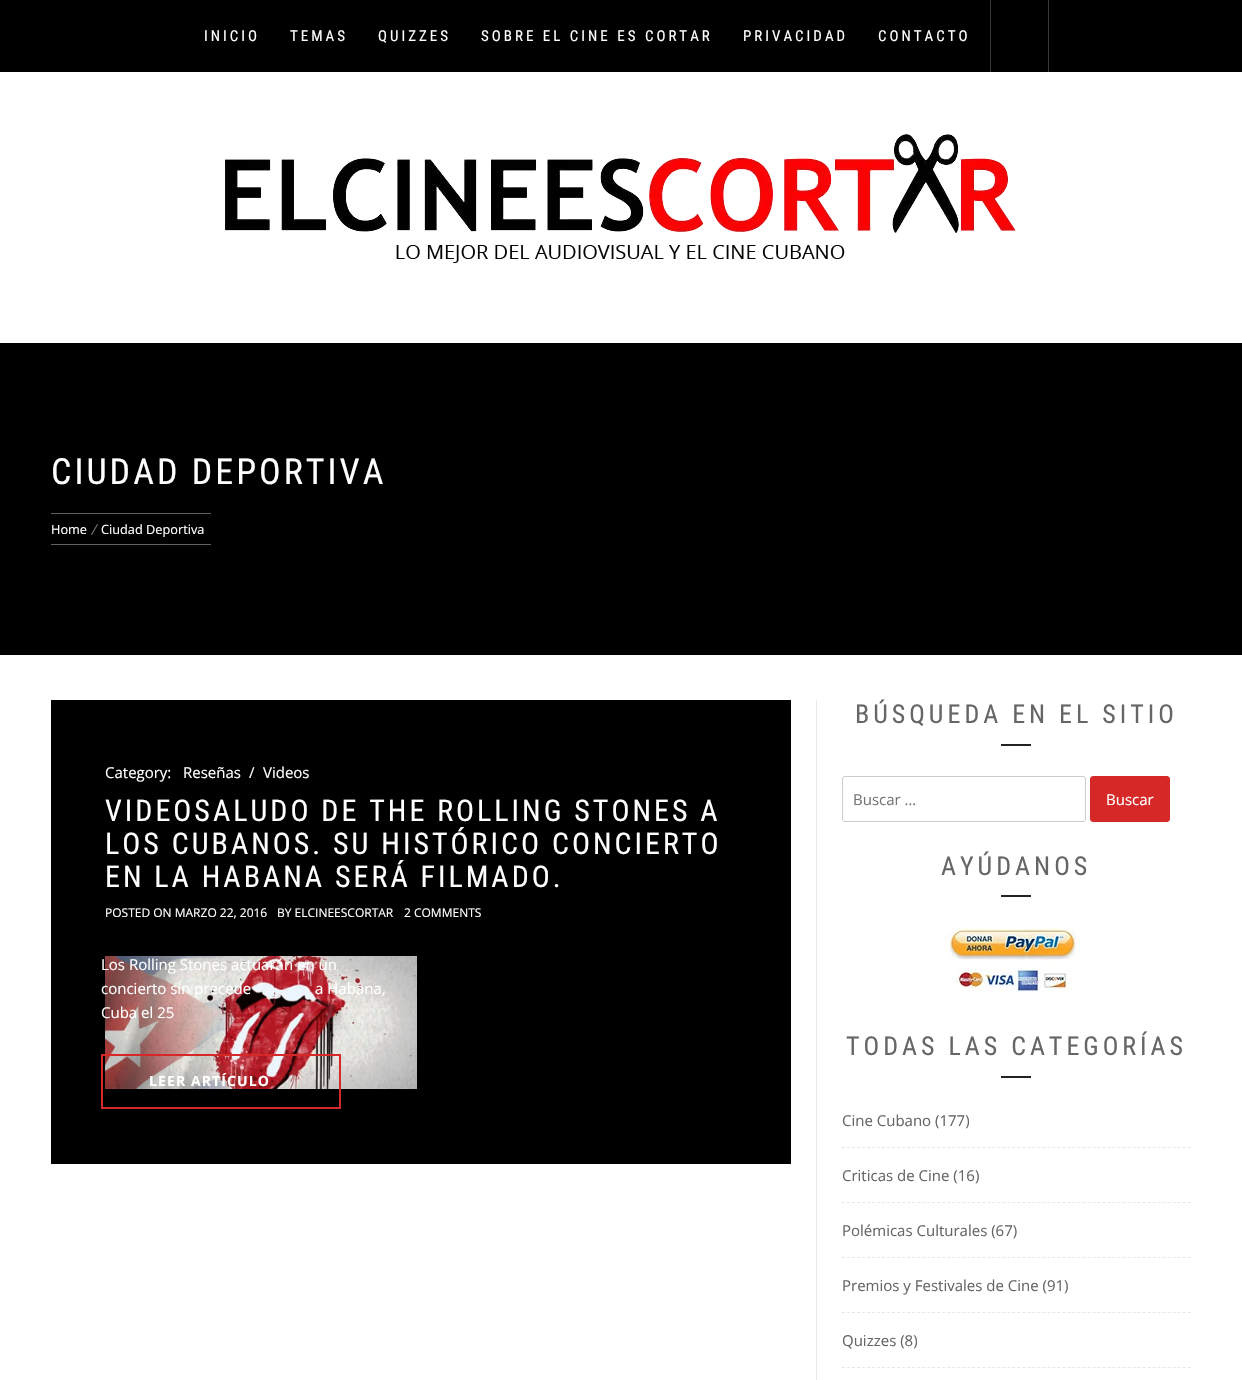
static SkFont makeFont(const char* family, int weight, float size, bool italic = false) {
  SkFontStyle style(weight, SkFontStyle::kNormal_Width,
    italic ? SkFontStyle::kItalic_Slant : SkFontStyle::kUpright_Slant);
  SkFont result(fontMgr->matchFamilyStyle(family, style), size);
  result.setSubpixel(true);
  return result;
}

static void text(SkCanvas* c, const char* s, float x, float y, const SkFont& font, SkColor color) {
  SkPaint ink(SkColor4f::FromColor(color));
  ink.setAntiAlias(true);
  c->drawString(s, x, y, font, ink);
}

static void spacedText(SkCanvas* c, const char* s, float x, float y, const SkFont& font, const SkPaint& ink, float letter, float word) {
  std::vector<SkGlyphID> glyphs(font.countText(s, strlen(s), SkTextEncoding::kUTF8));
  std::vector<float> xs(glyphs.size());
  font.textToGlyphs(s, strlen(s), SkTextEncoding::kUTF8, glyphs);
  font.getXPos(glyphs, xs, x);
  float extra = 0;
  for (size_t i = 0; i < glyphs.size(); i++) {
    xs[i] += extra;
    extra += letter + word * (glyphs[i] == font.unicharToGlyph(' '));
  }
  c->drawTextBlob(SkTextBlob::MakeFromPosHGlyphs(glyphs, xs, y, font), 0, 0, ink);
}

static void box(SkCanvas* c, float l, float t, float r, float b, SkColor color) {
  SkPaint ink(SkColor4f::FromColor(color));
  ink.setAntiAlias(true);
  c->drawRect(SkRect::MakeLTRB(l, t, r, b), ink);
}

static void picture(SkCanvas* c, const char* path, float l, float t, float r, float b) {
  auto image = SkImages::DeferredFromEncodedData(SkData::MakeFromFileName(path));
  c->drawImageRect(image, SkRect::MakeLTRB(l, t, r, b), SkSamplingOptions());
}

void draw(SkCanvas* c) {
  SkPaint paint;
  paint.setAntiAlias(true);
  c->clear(0xffffffff);
  box(c, 0, 0, 1242, 72, 0xff000000);
  SkFont face1 = makeFont("Roboto Condensed", 400, 15);
  paint.setColor(0xffffffff);
  spacedText(c, "INICIO", 204, 41, face1, paint, 3, 0);
  spacedText(c, "TEMAS", 290, 41, face1, paint, 3, 0);
  spacedText(c, "QUIZZES", 378, 41, face1, paint, 3, 0);
  spacedText(c, "SOBRE EL CINE ES CORTAR", 481, 41, face1, paint, 3, 0);
  spacedText(c, "PRIVACIDAD", 743, 41, face1, paint, 3, 0);
  spacedText(c, "CONTACTO", 878, 41, face1, paint, 3, 0);
  box(c, 1048, 0, 1049, 72, 0xff383838);
  box(c, 990, 0, 991, 72, 0xff383838);
  picture(c, "img_01.png", 225, 134, 1016, 263);
  box(c, 0, 343, 1242, 655, 0xff000000);
  SkFont face2 = makeFont("Roboto Condensed", 400, 36);
  spacedText(c, "CIUDAD DEPORTIVA", 51, 484, face2, paint, 3, 0);
  box(c, 51, 513, 211, 514, 0xff616161);
  box(c, 51, 544, 211, 545, 0xff616161);
  SkFont face3 = makeFont("Open Sans", 400, 12.75f);
  text(c, "Home", 51, 534, face3, 0xffffffff);
  paint.setColor(0xff737373);
  c->drawPath(SkPathBuilder().moveTo(97, 524).lineTo(98, 524.5f).lineTo(92, 535).lineTo(91, 534.5f).close().detach(), paint);
  text(c, "Ciudad Deportiva", 101, 534, face3, 0xffffffff);
  box(c, 51, 700, 791, 1164, 0xff000000);
  SkFont face4 = makeFont("Open Sans", 400, 15);
  text(c, "Category:", 105, 778, face4, 0xffffffff);
  text(c, "Reseñas", 183, 778, face4, 0xffffffff);
  text(c, "/", 249, 778, face4, 0xffffffff);
  text(c, "Videos", 263, 778, face4, 0xffffffff);
  SkFont face5 = makeFont("Roboto Condensed", 400, 30);
  paint.setColor(0xffffffff);
  spacedText(c, "VIDEOSALUDO DE THE ROLLING STONES A", 105, 821, face5, paint, 3, 0);
  spacedText(c, "LOS CUBANOS. SU HISTÓRICO CONCIERTO", 105, 854, face5, paint, 3, 0);
  spacedText(c, "EN LA HABANA SERÁ FILMADO.", 105, 887, face5, paint, 3, 0);
  SkFont face6 = makeFont("Open Sans", 400, 12);
  text(c, "POSTED ON MARZO 22, 2016", 105, 917, face6, 0xffffffff);
  text(c, "BY ELCINEESCORTAR", 277, 917, face6, 0xffffffff);
  text(c, "2 COMMENTS", 404, 917, face6, 0xffffffff);
  picture(c, "img_02.png", 105, 956, 417, 1089);
  text(c, "Los Rolling Stones actuarán en un", 101, 970, face4, 0xffffffff);
  text(c, "concierto sin precede", 101, 994, face4, 0xffffffff);
  text(c, "a Habana,", 315, 994, face4, 0xffffffff);
  text(c, "Cuba el 25", 101, 1018, face4, 0xffffffff);
  paint.setStyle(SkPaint::kStroke_Style);
  paint.setStrokeWidth(2);
  paint.setColor(0xffd72828);
  c->drawRect(SkRect::MakeLTRB(102, 1055, 340, 1108), paint);
  SkFont face7 = makeFont("Open Sans", 700, 14);
  paint.setStyle(SkPaint::kFill_Style);
  paint.setColor(0xffffffff);
  spacedText(c, "LEER ARTÍCULO", 149, 1086, face7, paint, 1.1f, 0);
  box(c, 816, 700, 817, 1380, 0xffe8e8e8);
  SkFont face8 = makeFont("Roboto Condensed", 400, 26);
  paint.setColor(0xff666666);
  spacedText(c, "BÚSQUEDA EN EL SITIO", 855, 723, face8, paint, 4, 0);
  box(c, 1001, 744, 1031, 746, 0xff232323);
  paint.setStyle(SkPaint::kStroke_Style);
  paint.setStrokeWidth(1);
  paint.setColor(0xffcccccc);
  c->drawRoundRect(SkRect::MakeLTRB(842.5f, 776.5f, 1085.5f, 821.5f), 2.5f, 2.5f, paint);
  text(c, "Buscar …", 853, 805, face4, 0xff757575);
  paint.setStyle(SkPaint::kFill_Style);
  paint.setColor(0xffd72828);
  c->drawRoundRect(SkRect::MakeLTRB(1090.5f, 776.5f, 1169.5f, 821.5f), 2.5f, 2.5f, paint);
  paint.setStyle(SkPaint::kStroke_Style);
  c->drawRoundRect(SkRect::MakeLTRB(1090.5f, 776.5f, 1169.5f, 821.5f), 2.5f, 2.5f, paint);
  text(c, "Buscar", 1106, 805, face4, 0xffffffff);
  paint.setStyle(SkPaint::kFill_Style);
  paint.setColor(0xff666666);
  spacedText(c, "AYÚDANOS", 941, 875, face8, paint, 4, 0);
  box(c, 1001, 895, 1031, 897, 0xff232323);
  picture(c, "img_03.png", 945, 927, 1081, 992);
  spacedText(c, "TODAS LAS CATEGORÍAS", 846, 1055, face8, paint, 4, 0);
  box(c, 1001, 1076, 1031, 1078, 0xff232323);
  paint.setStyle(SkPaint::kStroke_Style);
  paint.setColor(0xffe8e8e8);
  paint.setPathEffect(SkDashPathEffect::Make({{3, 2.01f}}, 0));
  c->drawPath(SkPathBuilder().moveTo(842, 1147.5f).lineTo(1191, 1147.5f).detach(), paint);
  paint.setPathEffect(nullptr);
  text(c, "Cine Cubano (177)", 842, 1126, face4, 0xff666666);
  paint.setPathEffect(SkDashPathEffect::Make({{3, 2.01f}}, 0));
  c->drawPath(SkPathBuilder().moveTo(842, 1202.5f).lineTo(1191, 1202.5f).detach(), paint);
  paint.setPathEffect(nullptr);
  text(c, "Criticas de Cine (16)", 842, 1181, face4, 0xff666666);
  paint.setPathEffect(SkDashPathEffect::Make({{3, 2.01f}}, 0));
  c->drawPath(SkPathBuilder().moveTo(842, 1257.5f).lineTo(1191, 1257.5f).detach(), paint);
  paint.setPathEffect(nullptr);
  text(c, "Polémicas Culturales (67)", 842, 1236, face4, 0xff666666);
  paint.setPathEffect(SkDashPathEffect::Make({{3, 2.01f}}, 0));
  c->drawPath(SkPathBuilder().moveTo(842, 1312.5f).lineTo(1191, 1312.5f).detach(), paint);
  paint.setPathEffect(nullptr);
  text(c, "Premios y Festivales de Cine (91)", 842, 1291, face4, 0xff666666);
  paint.setPathEffect(SkDashPathEffect::Make({{3, 2.01f}}, 0));
  c->drawPath(SkPathBuilder().moveTo(842, 1367.5f).lineTo(1191, 1367.5f).detach(), paint);
  paint.setPathEffect(nullptr);
  text(c, "Quizzes (8)", 842, 1346, face4, 0xff666666);
}
